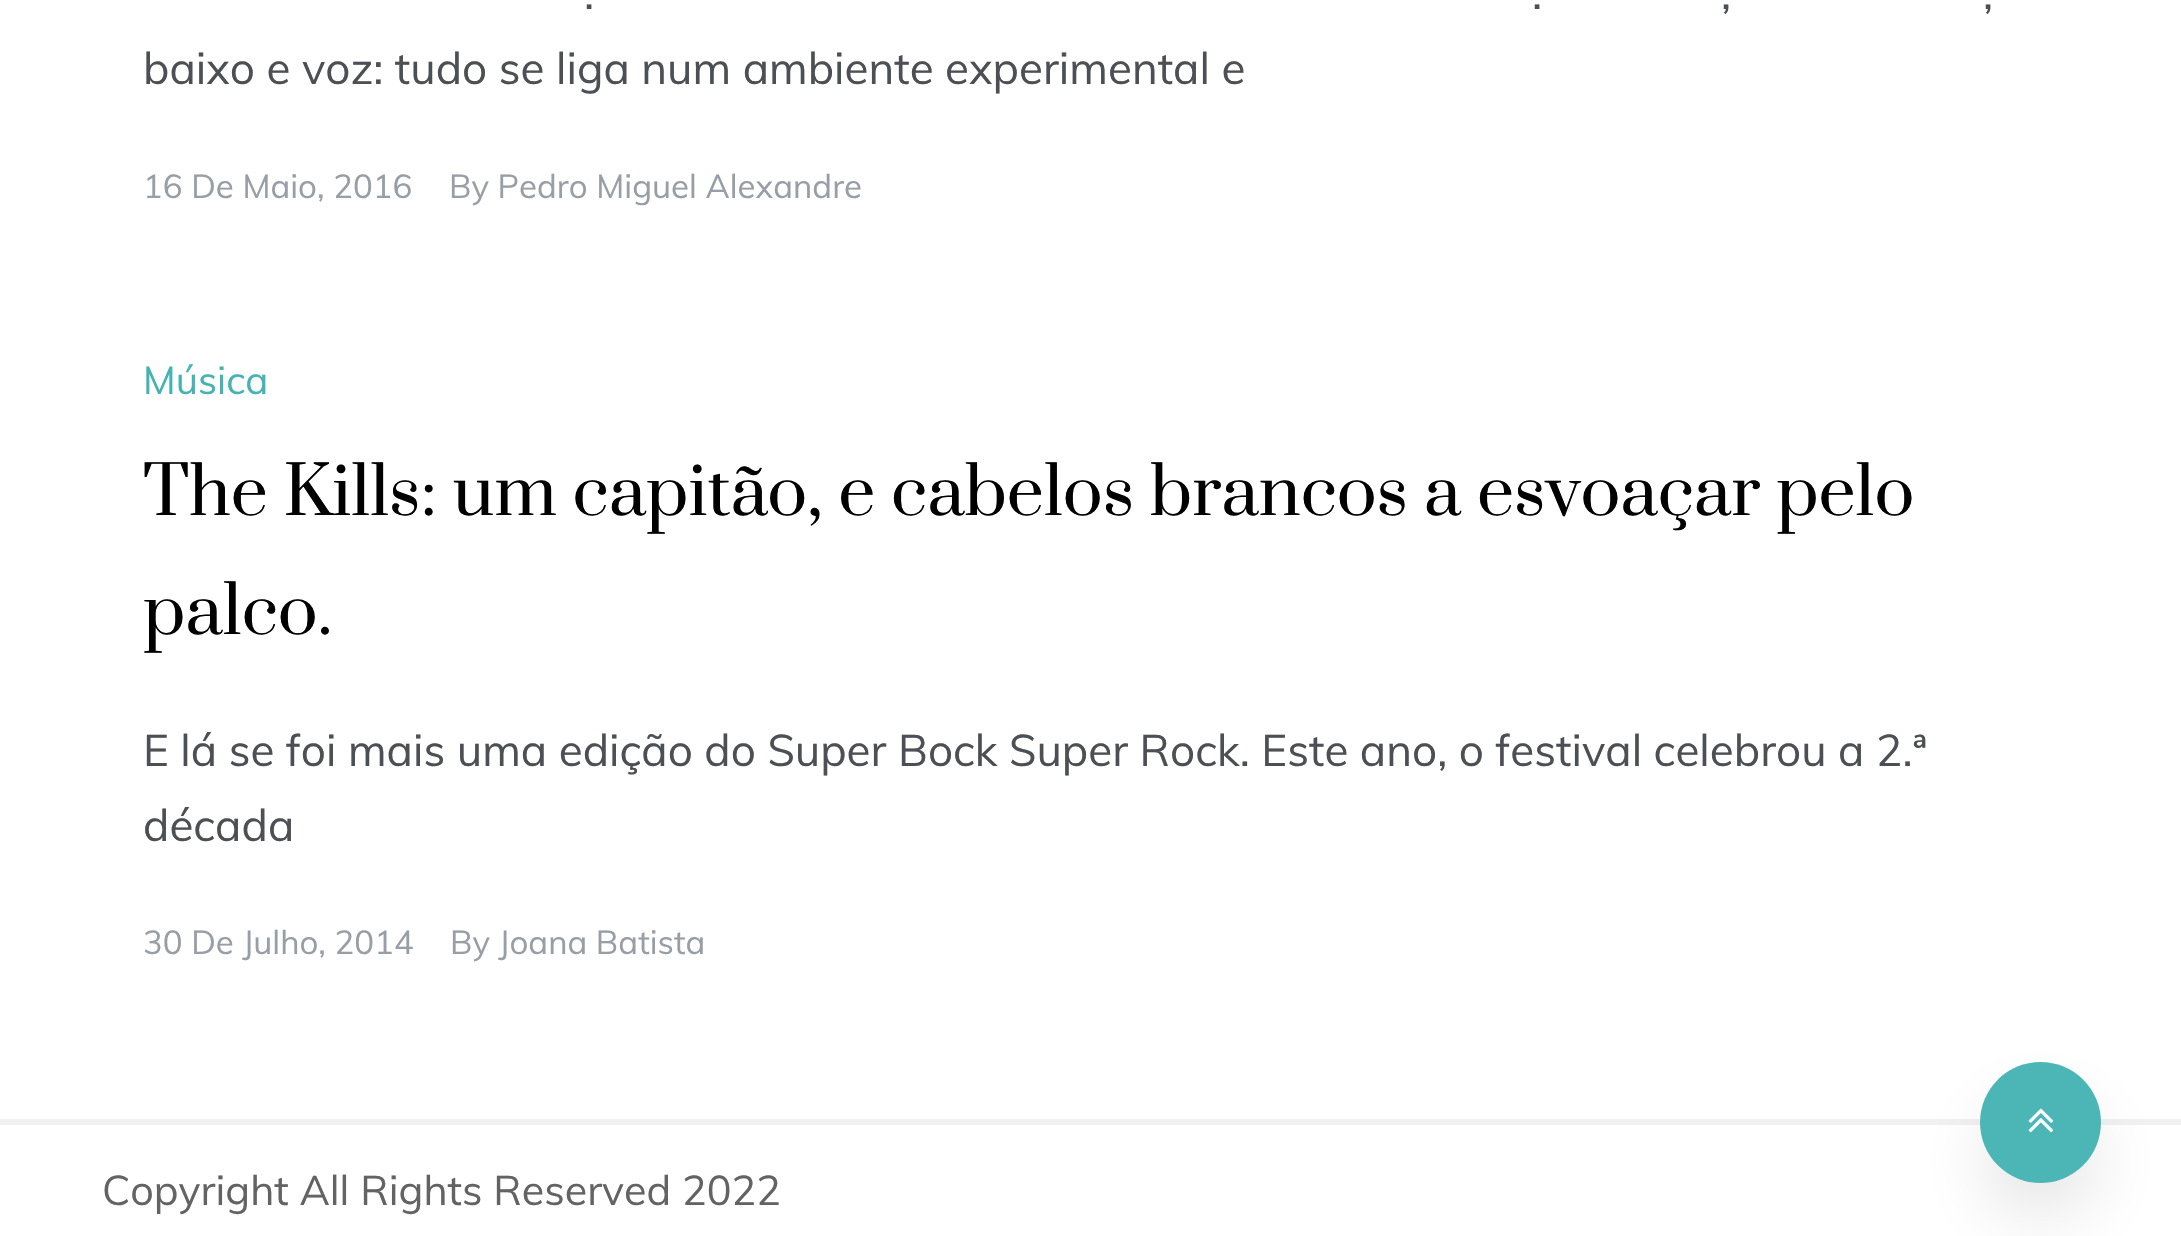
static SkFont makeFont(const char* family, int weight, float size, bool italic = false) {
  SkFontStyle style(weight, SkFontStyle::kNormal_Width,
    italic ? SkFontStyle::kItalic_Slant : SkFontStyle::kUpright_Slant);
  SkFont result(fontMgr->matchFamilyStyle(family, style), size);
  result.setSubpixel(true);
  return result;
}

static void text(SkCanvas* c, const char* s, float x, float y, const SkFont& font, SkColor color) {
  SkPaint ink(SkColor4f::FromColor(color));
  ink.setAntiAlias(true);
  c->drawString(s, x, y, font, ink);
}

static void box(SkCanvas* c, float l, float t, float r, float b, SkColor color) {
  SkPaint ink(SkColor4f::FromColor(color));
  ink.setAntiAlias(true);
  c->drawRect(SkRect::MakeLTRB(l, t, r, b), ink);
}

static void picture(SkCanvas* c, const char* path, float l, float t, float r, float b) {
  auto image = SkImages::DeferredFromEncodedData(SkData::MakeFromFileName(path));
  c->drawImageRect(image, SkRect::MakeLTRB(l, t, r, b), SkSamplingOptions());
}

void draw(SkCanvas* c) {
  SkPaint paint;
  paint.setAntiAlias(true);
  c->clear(0xffffffff);
  SkFont face1 = makeFont("Muli", 400, 44);
  text(c, ".", 584, 9, face1, 0xff4c4f53);
  text(c, ".", 1532, 9, face1, 0xff4c4f53);
  text(c, ",", 1721, 9, face1, 0xff4c4f53);
  text(c, ",", 1983, 9, face1, 0xff4c4f53);
  text(c, "baixo e voz: tudo se liga num ambiente experimental e", 143, 84, face1, 0xff4c4f53);
  SkFont face2 = makeFont("Muli", 400, 33);
  text(c, "16 De Maio, 2016", 143, 198, face2, 0xff989ea6);
  text(c, "By Pedro Miguel Alexandre", 449, 198, face2, 0xff989ea6);
  SkFont face3 = makeFont("Muli", 400, 38.5f);
  text(c, "Música", 143, 394, face3, 0xff45b3b3);
  SkFont face4 = makeFont("Prata", 400, 66);
  text(c, "The Kills: um capitão, e cabelos brancos a esvoaçar pelo", 143, 515, face4, 0xff000000);
  text(c, "palco.", 143, 634, face4, 0xff000000);
  text(c, "E lá se foi mais uma edição do Super Bock Super Rock. Este ano, o festival celebrou a 2.ª", 143, 766, face1, 0xff4c4f53);
  text(c, "década", 143, 841, face1, 0xff4c4f53);
  text(c, "30 De Julho, 2014", 143, 954, face2, 0xff989ea6);
  text(c, "By Joana Batista", 450, 954, face2, 0xff989ea6);
  box(c, 0, 1119, 2181, 1125, 0xfff1f1f1);
  SkFont face5 = makeFont("Muli", 400, 41.25f);
  text(c, "Copyright All Rights Reserved 2022", 102, 1205, face5, 0xff636363);
  c->save();
  c->clipPath(SkPathBuilder(SkPathFillType::kEvenOdd).moveTo(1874, 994).lineTo(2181, 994).lineTo(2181, 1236).lineTo(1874, 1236).close().moveTo(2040.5f, 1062).cubicTo(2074, 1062, 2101, 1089, 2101, 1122.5f).cubicTo(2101, 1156, 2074, 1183, 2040.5f, 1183).cubicTo(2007, 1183, 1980, 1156, 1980, 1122.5f).cubicTo(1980, 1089, 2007, 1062, 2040.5f, 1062).close().detach(), true);
  paint.setColor(0x240e1114);
  paint.setMaskFilter(SkMaskFilter::MakeBlur(kNormal_SkBlurStyle, 38.5f));
  c->drawRoundRect(SkRect::MakeLTRB(1991, 1111, 2090, 1210), 49.5f, 49.5f, paint);
  paint.setMaskFilter(nullptr);
  c->restore();
  paint.setColor(0xf545b3b3);
  c->drawCircle(2040.5f, 1122.5f, 60.5f, paint);
  picture(c, "img_01.png", 2028, 1108, 2054, 1133);
}
